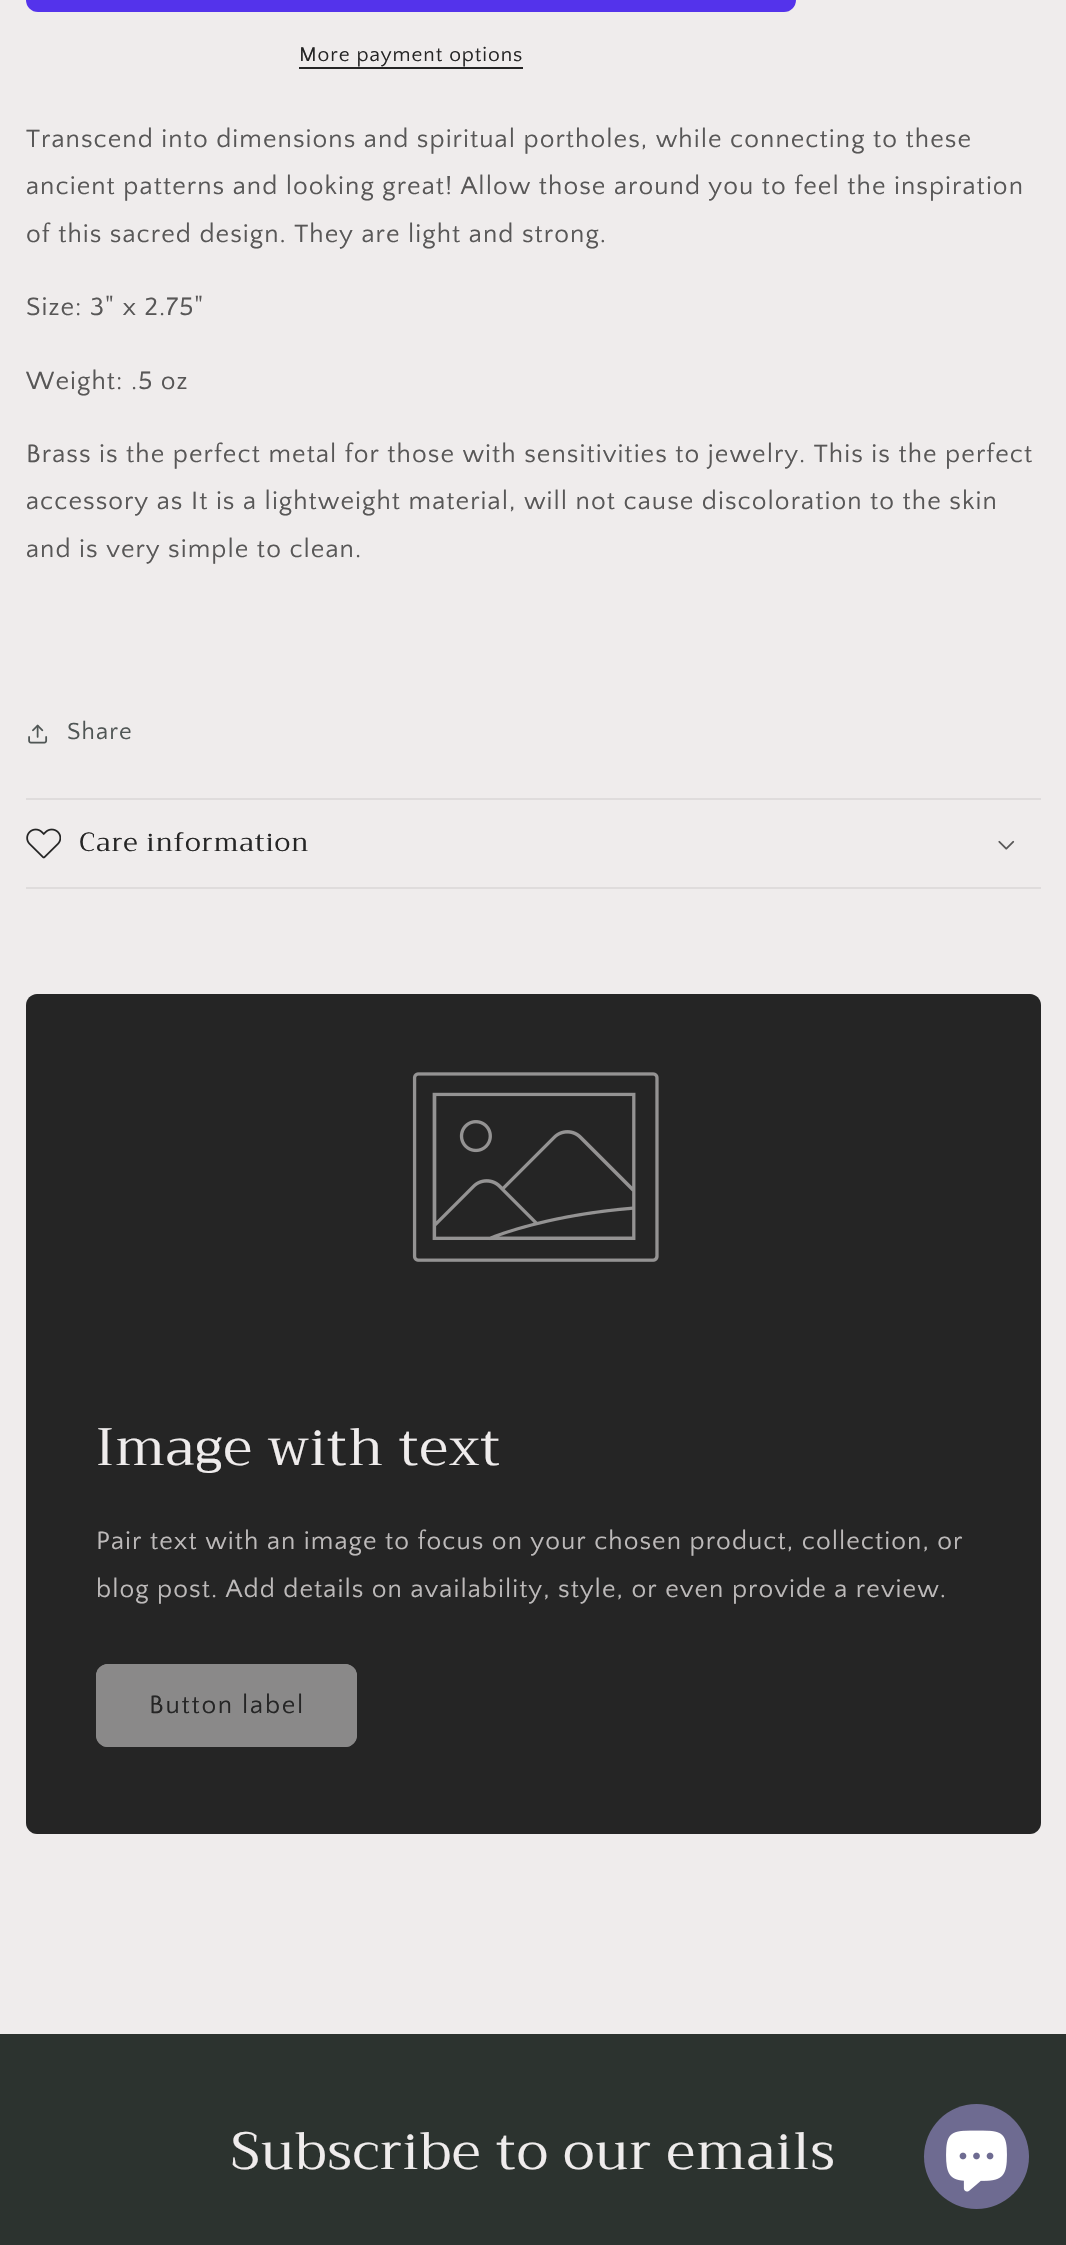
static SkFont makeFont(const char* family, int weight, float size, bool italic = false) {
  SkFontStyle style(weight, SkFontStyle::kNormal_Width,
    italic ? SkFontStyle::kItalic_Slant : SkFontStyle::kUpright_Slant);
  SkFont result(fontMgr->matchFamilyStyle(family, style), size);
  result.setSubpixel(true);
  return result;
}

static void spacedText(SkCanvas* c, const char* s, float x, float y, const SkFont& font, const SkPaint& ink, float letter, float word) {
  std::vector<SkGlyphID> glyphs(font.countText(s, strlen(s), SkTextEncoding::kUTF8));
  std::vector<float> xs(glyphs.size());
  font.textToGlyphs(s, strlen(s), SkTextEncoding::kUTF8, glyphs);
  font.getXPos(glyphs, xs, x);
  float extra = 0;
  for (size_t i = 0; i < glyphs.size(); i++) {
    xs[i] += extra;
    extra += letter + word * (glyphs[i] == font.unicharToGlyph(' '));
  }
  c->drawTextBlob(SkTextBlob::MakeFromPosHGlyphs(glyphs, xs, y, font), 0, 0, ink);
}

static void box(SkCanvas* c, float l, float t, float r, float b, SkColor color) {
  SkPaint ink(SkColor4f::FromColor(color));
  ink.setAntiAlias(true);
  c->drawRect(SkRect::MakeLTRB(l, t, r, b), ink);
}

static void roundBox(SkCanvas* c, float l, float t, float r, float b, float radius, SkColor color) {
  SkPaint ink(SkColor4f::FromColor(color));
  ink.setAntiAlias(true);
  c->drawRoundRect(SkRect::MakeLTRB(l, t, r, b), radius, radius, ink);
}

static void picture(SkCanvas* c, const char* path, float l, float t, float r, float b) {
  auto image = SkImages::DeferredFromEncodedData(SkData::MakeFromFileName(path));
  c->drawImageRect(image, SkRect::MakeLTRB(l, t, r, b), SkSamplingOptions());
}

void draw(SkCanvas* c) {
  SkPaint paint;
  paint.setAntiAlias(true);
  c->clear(0xffefecec);
  roundBox(c, 26, -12, 796, 12, 12, 0xff5433eb);
  SkFont face1 = makeFont("Quattrocento Sans", 400, 21);
  paint.setColor(0xff252525);
  spacedText(c, "More payment options", 299, 61, face1, paint, 0.9f, 0);
  box(c, 299, 67, 523, 69, 0xff252525);
  SkFont face2 = makeFont("Quattrocento Sans", 400, 26.25f);
  paint.setColor(0xff585757);
  spacedText(c, "Transcend into dimensions and spiritual portholes, while connecting to these", 26, 147, face2, paint, 1.05f, 0);
  spacedText(c, "ancient patterns and looking great! Allow those around you to feel the inspiration", 26, 194, face2, paint, 1.05f, 0);
  spacedText(c, "of this sacred design. They are light and strong.", 26, 242, face2, paint, 1.05f, 0);
  spacedText(c, "Size: 3\" x 2.75\"", 26, 315, face2, paint, 1.05f, 0);
  spacedText(c, "Weight: .5 oz", 26, 389, face2, paint, 1.05f, 0);
  spacedText(c, "Brass is the perfect metal for those with sensitivities to jewelry. This is the perfect", 26, 462, face2, paint, 1.05f, 0);
  spacedText(c, "accessory as It is a lightweight material, will not cause discoloration to the skin", 26, 509, face2, paint, 1.05f, 0);
  spacedText(c, "and is very simple to clean.", 26, 557, face2, paint, 1.05f, 0);
  picture(c, "img_01.png", 28, 724, 48, 744);
  SkFont face3 = makeFont("Quattrocento Sans", 400, 24.5f);
  paint.setColor(0xff505655);
  spacedText(c, "Share", 67, 739, face3, paint, 1.05f, 0);
  box(c, 26, 798, 1041, 800, 0xffdfdcdc);
  box(c, 26, 887, 1041, 889, 0xffdfdcdc);
  picture(c, "img_02.png", 26, 828, 61, 859);
  SkFont face4 = makeFont("Trirong", 400, 26.25f);
  paint.setColor(0xff252525);
  spacedText(c, "Care information", 79, 851, face4, paint, 1.05f, 0);
  picture(c, "img_03.png", 998, 840, 1015, 850);
  c->drawPath(SkPathBuilder().moveTo(37, 994).lineTo(1030, 994).cubicTo(1036, 994, 1041, 999, 1041, 1005).lineTo(1041, 1344).lineTo(26, 1344).lineTo(26, 1005).cubicTo(26, 999, 31, 994, 37, 994).close().detach(), paint);
  picture(c, "img_04.png", 412, 1072, 659, 1262);
  c->drawPath(SkPathBuilder().moveTo(26, 1344).lineTo(1041, 1344).lineTo(1041, 1823).cubicTo(1041, 1829, 1036, 1834, 1030, 1834).lineTo(37, 1834).cubicTo(31, 1834, 26, 1829, 26, 1823).close().detach(), paint);
  SkFont face5 = makeFont("Trirong", 400, 52.5f);
  paint.setColor(0xffefecec);
  spacedText(c, "Image with text", 96, 1465, face5, paint, 1.05f, 0);
  paint.setColor(0xffbdbaba);
  spacedText(c, "Pair text with an image to focus on your chosen product, collection, or", 96, 1549, face2, paint, 1.05f, 0);
  spacedText(c, "blog post. Add details on availability, style, or even provide a review.", 96, 1597, face2, paint, 1.05f, 0);
  roundBox(c, 96, 1664, 357, 1747, 12, 0xff8a8989);
  paint.setStyle(SkPaint::kStroke_Style);
  paint.setStrokeWidth(2);
  paint.setColor(0xff8a8989);
  c->drawRoundRect(SkRect::MakeLTRB(97, 1665, 356, 1746), 11, 11, paint);
  paint.setStyle(SkPaint::kFill_Style);
  paint.setColor(0xff252525);
  spacedText(c, "Button label", 149, 1713, face2, paint, 1.75f, 0);
  box(c, 0, 2034, 1066, 2245, 0xff2c332f);
  paint.setColor(0xffefecec);
  spacedText(c, "Subscribe to our emails", 231, 2169, face5, paint, 1.05f, 0);
  paint.setColor(0xff6e6b91);
  c->drawCircle(976.5f, 2156.5f, 52.5f, paint);
  picture(c, "img_05.png", 946, 2130, 1007, 2192);
}
